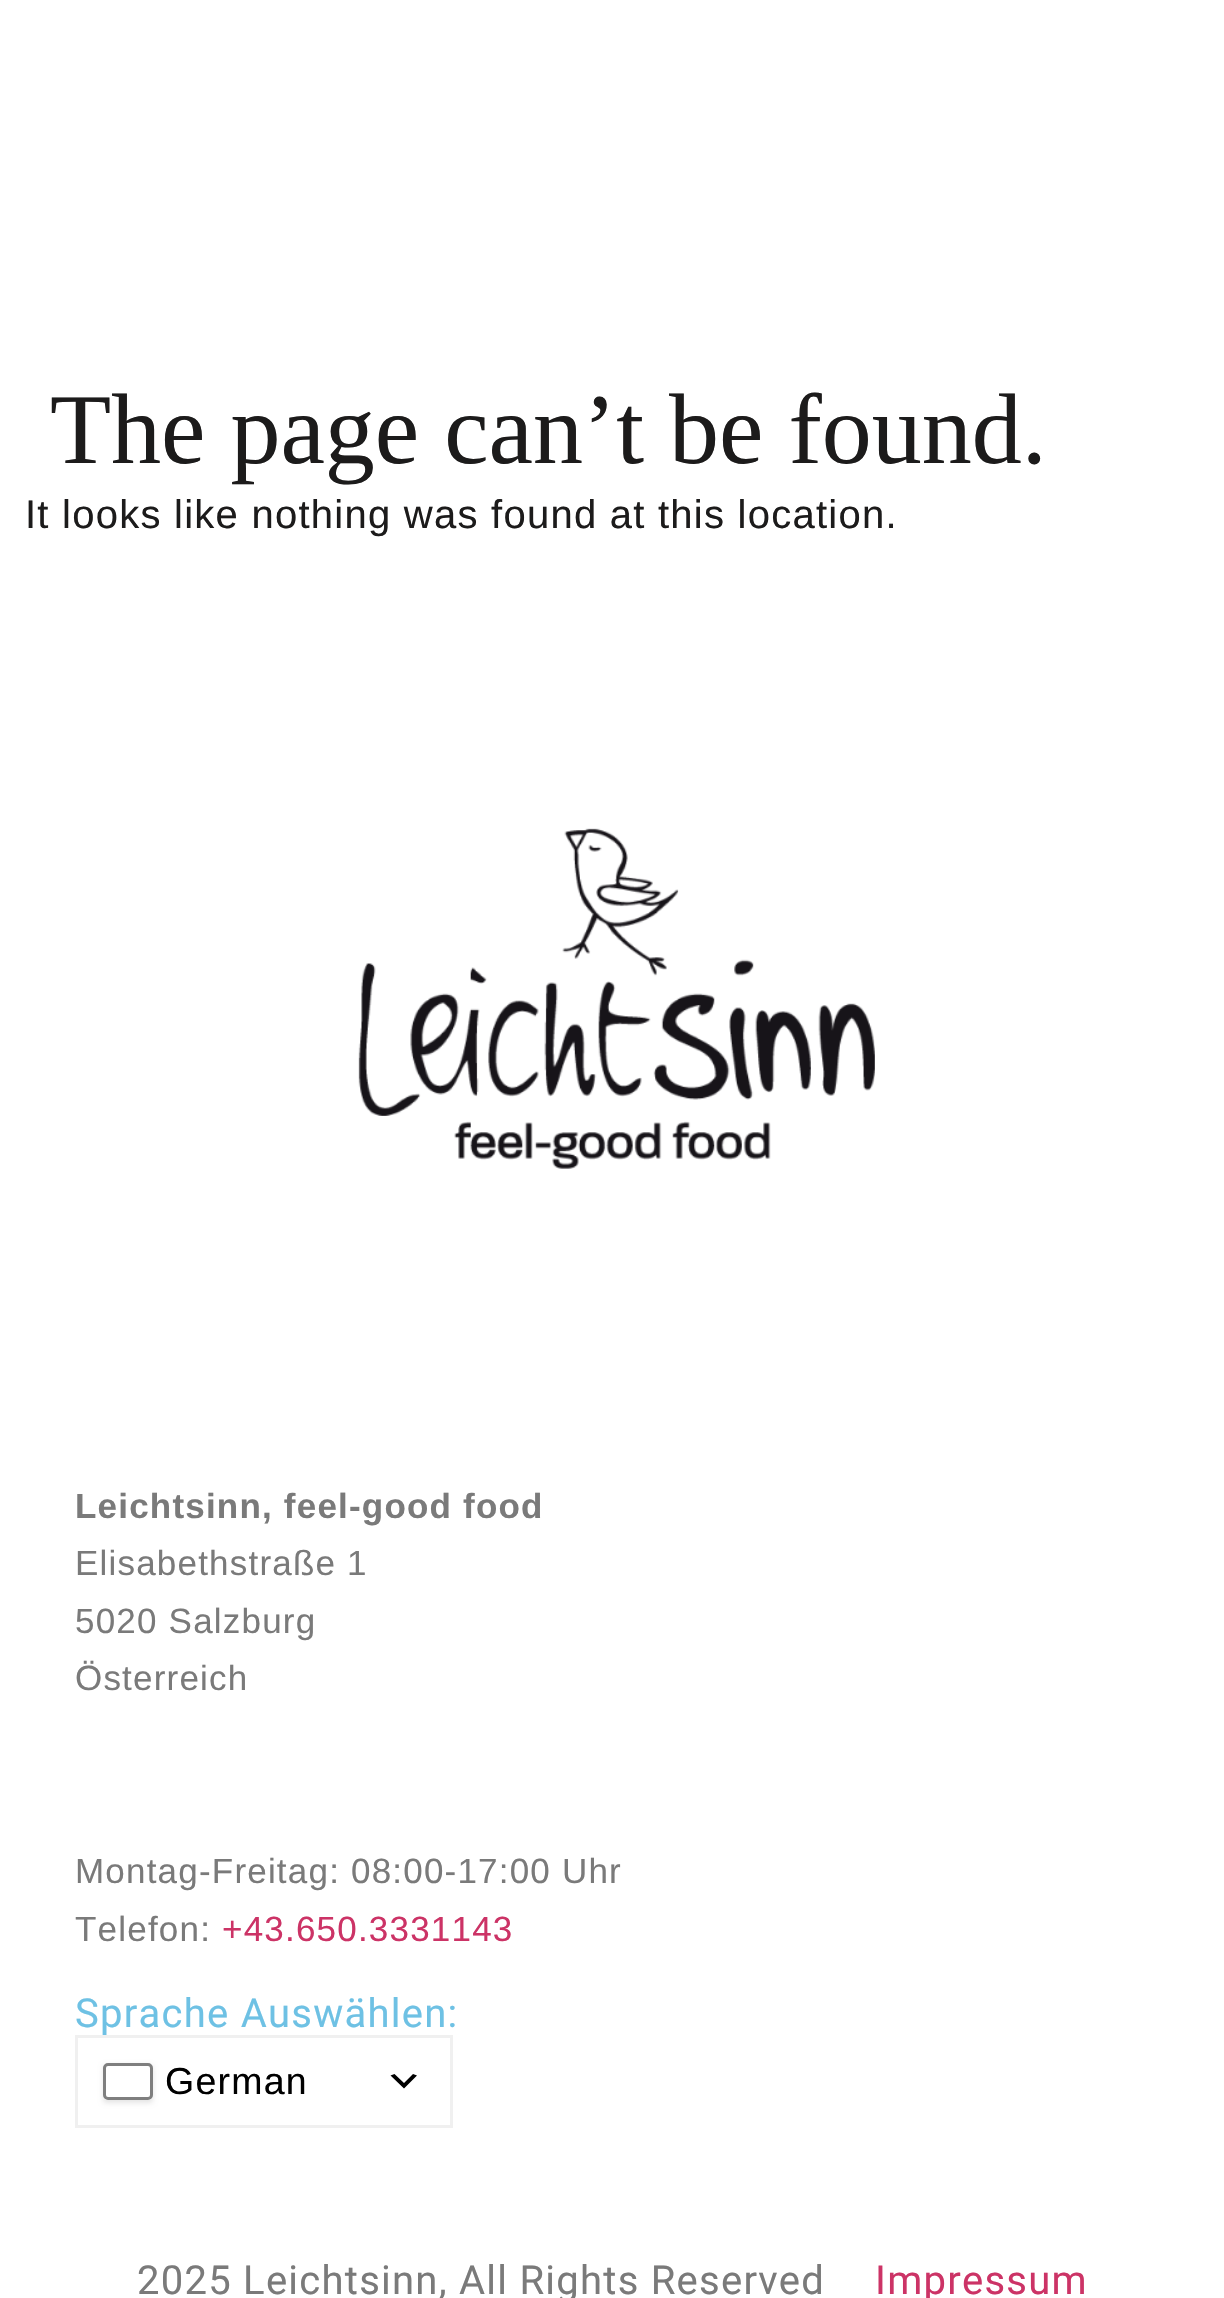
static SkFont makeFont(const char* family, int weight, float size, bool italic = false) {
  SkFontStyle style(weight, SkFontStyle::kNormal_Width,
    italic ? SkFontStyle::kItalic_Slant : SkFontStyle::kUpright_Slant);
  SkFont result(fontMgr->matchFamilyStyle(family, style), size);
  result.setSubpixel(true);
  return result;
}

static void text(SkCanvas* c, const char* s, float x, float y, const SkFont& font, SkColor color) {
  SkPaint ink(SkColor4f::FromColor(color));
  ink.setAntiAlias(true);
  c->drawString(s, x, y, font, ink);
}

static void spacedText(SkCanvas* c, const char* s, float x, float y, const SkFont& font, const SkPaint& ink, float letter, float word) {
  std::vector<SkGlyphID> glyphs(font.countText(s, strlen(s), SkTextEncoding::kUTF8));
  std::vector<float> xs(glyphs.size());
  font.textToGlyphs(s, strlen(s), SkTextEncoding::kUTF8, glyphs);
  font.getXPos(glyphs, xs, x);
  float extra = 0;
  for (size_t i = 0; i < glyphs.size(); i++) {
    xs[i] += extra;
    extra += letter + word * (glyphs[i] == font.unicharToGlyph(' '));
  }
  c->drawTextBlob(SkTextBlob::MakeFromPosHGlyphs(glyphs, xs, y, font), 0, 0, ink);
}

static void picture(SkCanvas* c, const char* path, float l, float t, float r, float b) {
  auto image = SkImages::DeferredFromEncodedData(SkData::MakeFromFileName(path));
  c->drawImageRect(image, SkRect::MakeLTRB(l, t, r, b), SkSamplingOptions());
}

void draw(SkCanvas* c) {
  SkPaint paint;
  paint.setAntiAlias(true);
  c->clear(0xffffffff);
  SkFont face1 = makeFont("Liberation Serif", 400, 100);
  text(c, "The page can’t be found.", 50, 463, face1, 0xff1c1b1b);
  SkFont face2 = makeFont("Liberation Sans", 400, 40);
  paint.setColor(0xff1c1b1b);
  spacedText(c, "It looks like nothing was found at this location.", 25, 528, face2, paint, 1.25f, 0);
  picture(c, "img_01.png", 358, 828, 875, 1169);
  SkFont face3 = makeFont("Liberation Sans", 700, 35);
  paint.setColor(0xff7a7a7a);
  spacedText(c, "Leichtsinn, feel-good food", 75, 1518, face3, paint, 1.2f, 0);
  SkFont face4 = makeFont("Liberation Sans", 400, 35);
  spacedText(c, "Elisabethstraße 1", 75, 1575, face4, paint, 1.2f, 0);
  spacedText(c, "5020 Salzburg", 75, 1633, face4, paint, 1.2f, 0);
  spacedText(c, "Österreich", 75, 1690, face4, paint, 1.2f, 0);
  spacedText(c, "Montag-Freitag: 08:00-17:00 Uhr", 75, 1883, face4, paint, 1.2f, 0);
  spacedText(c, "Telefon:", 75, 1941, face4, paint, 1.2f, 0);
  paint.setColor(0xffcc3366);
  spacedText(c, "+43.650.3331143", 222, 1941, face4, paint, 1.2f, 0);
  SkFont face5 = makeFont("Roboto", 400, 40);
  paint.setColor(0xff6ec1e4);
  spacedText(c, "Sprache Auswählen:", 75, 2027, face5, paint, 1.25f, 0);
  paint.setStyle(SkPaint::kStroke_Style);
  paint.setStrokeWidth(3);
  paint.setColor(0xfff0f0f0);
  c->drawRect(SkRect::MakeLTRB(76.5f, 2036.5f, 451.5f, 2126.5f), paint);
  c->save();
  c->clipPath(SkPathBuilder(SkPathFillType::kEvenOdd).moveTo(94, 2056).lineTo(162, 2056).lineTo(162, 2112).lineTo(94, 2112).close().moveTo(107, 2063).lineTo(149, 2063).cubicTo(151, 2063, 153, 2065, 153, 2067).lineTo(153, 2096).cubicTo(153, 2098, 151, 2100, 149, 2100).lineTo(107, 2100).cubicTo(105, 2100, 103, 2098, 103, 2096).lineTo(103, 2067).cubicTo(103, 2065, 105, 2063, 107, 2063).close().detach(), true);
  paint.setStyle(SkPaint::kFill_Style);
  paint.setColor(0x1a000000);
  paint.setMaskFilter(SkMaskFilter::MakeBlur(kNormal_SkBlurStyle, 2.5f));
  c->drawRoundRect(SkRect::MakeLTRB(103, 2065, 153, 2103), 4, 4, paint);
  paint.setMaskFilter(nullptr);
  c->restore();
  paint.setStyle(SkPaint::kStroke_Style);
  paint.setColor(0x80000000);
  c->drawRoundRect(SkRect::MakeLTRB(104.5f, 2064.5f, 151.5f, 2098.5f), 3.5f, 3.5f, paint);
  SkFont face6 = makeFont("Liberation Sans", 400, 37.5f);
  paint.setStyle(SkPaint::kFill_Style);
  paint.setColor(0xff000000);
  spacedText(c, "German", 165, 2094, face6, paint, 1.25f, 0);
  c->drawPath(SkPathBuilder().moveTo(394.5f, 2074).lineTo(404, 2083).lineTo(413, 2074).lineTo(417, 2075.5f).lineTo(404, 2088.5f).lineTo(390.5f, 2075.5f).close().detach(), paint);
  paint.setColor(0xff7a7a7a);
  spacedText(c, "2025 Leichtsinn, All Rights Reserved", 137, 2294, face5, paint, 1.25f, 0);
  paint.setColor(0xffcc3366);
  spacedText(c, "Impressum", 875, 2294, face5, paint, 1.25f, 0);
}
